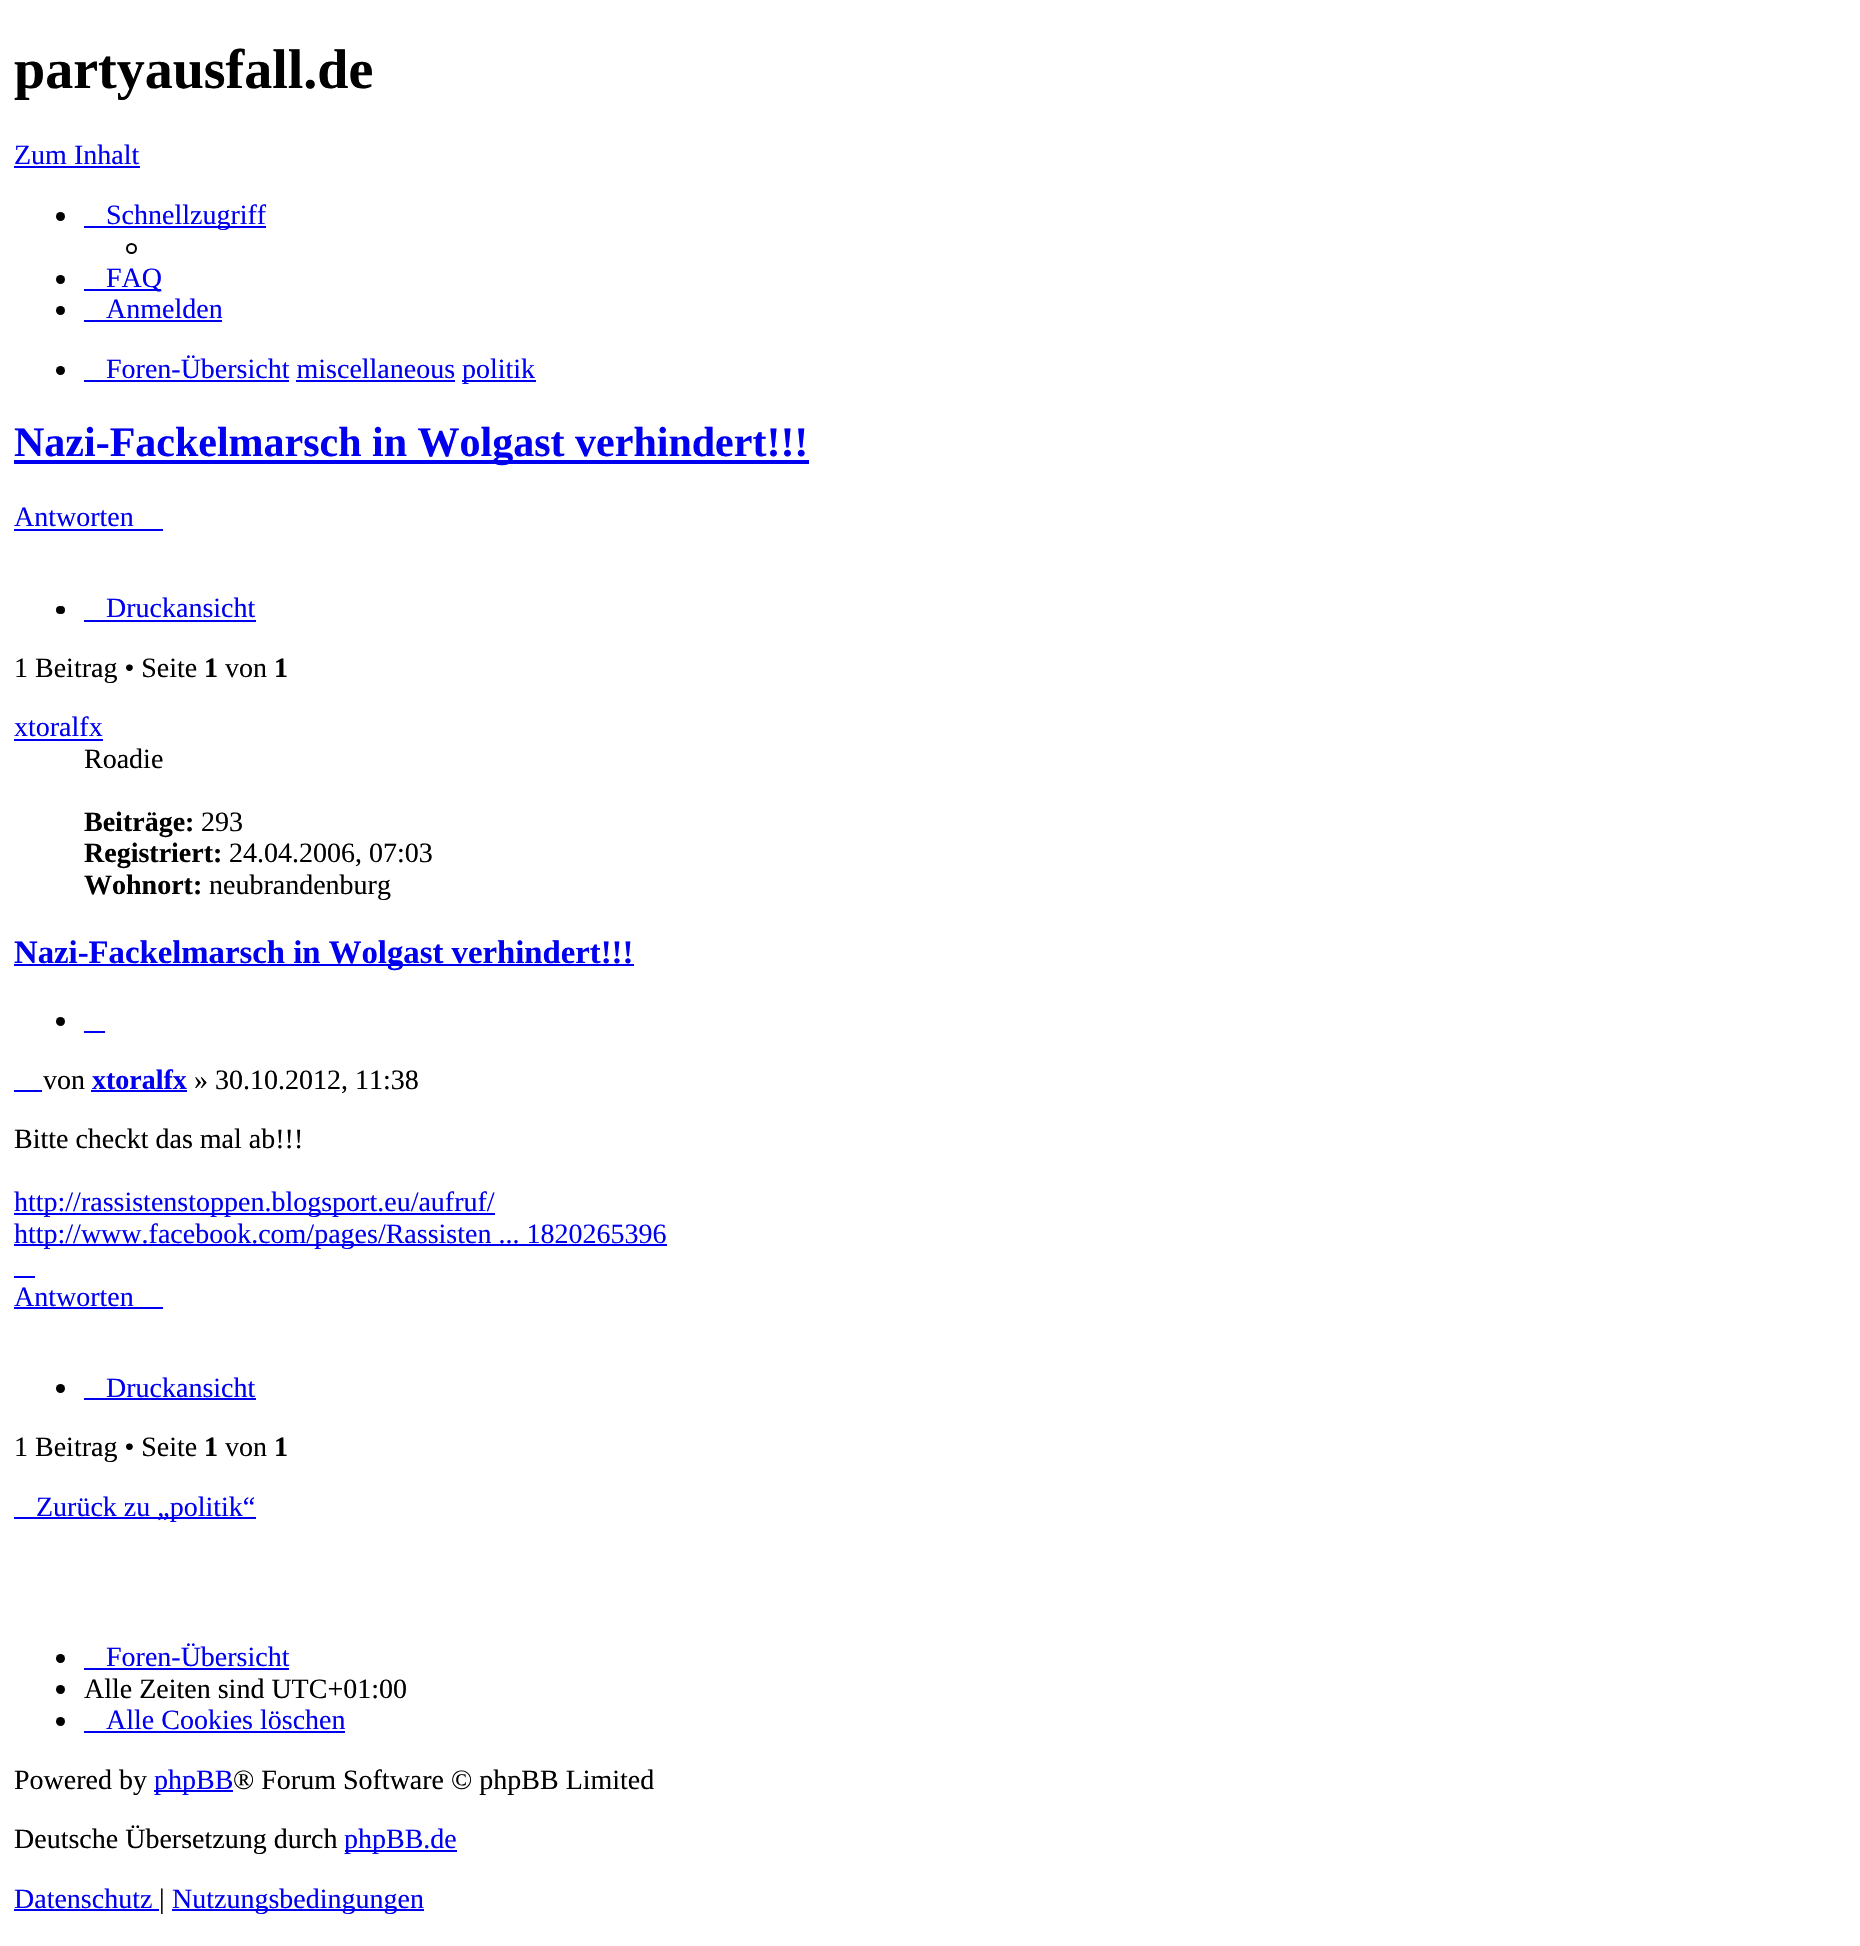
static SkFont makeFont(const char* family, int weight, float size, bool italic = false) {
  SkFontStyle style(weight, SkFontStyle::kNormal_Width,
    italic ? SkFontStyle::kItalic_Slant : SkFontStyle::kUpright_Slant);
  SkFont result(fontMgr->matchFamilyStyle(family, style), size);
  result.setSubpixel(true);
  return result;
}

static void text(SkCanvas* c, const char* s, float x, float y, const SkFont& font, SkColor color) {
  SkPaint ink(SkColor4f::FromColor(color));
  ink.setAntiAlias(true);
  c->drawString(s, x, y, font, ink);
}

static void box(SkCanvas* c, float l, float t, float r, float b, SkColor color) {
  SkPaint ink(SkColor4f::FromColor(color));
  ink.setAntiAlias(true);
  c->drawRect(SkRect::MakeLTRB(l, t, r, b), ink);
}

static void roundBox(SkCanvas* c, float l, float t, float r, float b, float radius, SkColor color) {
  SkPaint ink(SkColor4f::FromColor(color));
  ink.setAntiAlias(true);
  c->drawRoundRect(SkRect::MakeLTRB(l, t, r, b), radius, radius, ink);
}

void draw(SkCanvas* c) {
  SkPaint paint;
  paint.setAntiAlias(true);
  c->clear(0xffffffff);
  SkFont face1 = makeFont("Liberation Serif", 700, 56);
  text(c, "partyausfall.de", 14, 88, face1, 0xff000000);
  SkFont face2 = makeFont("Liberation Serif", 400, 28);
  text(c, "Zum Inhalt", 14, 164, face2, 0xff0000ee);
  box(c, 14, 166, 140, 168, 0xff0000ee);
  paint.setColor(0xff000000);
  c->drawCircle(60.5f, 216.5f, 4.5f, paint);
  box(c, 84, 226, 266, 228, 0xff0000ee);
  text(c, "Schnellzugriff", 106, 224, face2, 0xff0000ee);
  paint.setStyle(SkPaint::kStroke_Style);
  paint.setStrokeWidth(2);
  c->drawCircle(131.5f, 248.5f, 4.5f, paint);
  paint.setStyle(SkPaint::kFill_Style);
  c->drawCircle(60.5f, 279.5f, 4.5f, paint);
  box(c, 84, 289, 161, 291, 0xff0000ee);
  text(c, "FAQ", 106, 287, face2, 0xff0000ee);
  c->drawCircle(60.5f, 310.5f, 4.5f, paint);
  text(c, "Anmelden", 106, 318, face2, 0xff0000ee);
  box(c, 84, 320, 222, 322, 0xff0000ee);
  c->drawCircle(60.5f, 370.5f, 4.5f, paint);
  text(c, "Foren-Übersicht miscellaneous", 106, 378, face2, 0xff0000ee);
  box(c, 84, 380, 289, 382, 0xff0000ee);
  box(c, 462, 380, 536, 382, 0xff0000ee);
  text(c, "politik", 462, 378, face2, 0xff0000ee);
  box(c, 296, 380, 455, 382, 0xff0000ee);
  box(c, 14, 460, 809, 464, 0xff0000ee);
  SkFont face3 = makeFont("Liberation Serif", 700, 42);
  text(c, "Nazi-Fackelmarsch in Wolgast verhindert!!!", 14, 456, face3, 0xff0000ee);
  text(c, "Antworten", 14, 526, face2, 0xff0000ee);
  box(c, 14, 529, 163, 531, 0xff0000ee);
  roundBox(c, 56, 606, 65, 614, 4, 0xff000000);
  text(c, "Druckansicht", 106, 617, face2, 0xff0000ee);
  box(c, 84, 620, 256, 622, 0xff0000ee);
  text(c, "1 Beitrag • Seite", 14, 677, face2, 0xff000000);
  SkFont face4 = makeFont("Liberation Serif", 700, 28);
  text(c, "1", 204, 677, face4, 0xff000000);
  text(c, "von", 225, 677, face2, 0xff000000);
  text(c, "1", 274, 677, face4, 0xff000000);
  text(c, "xtoralfx", 14, 736, face2, 0xff0000ee);
  box(c, 14, 739, 103, 741, 0xff0000ee);
  text(c, "Roadie", 84, 768, face2, 0xff000000);
  text(c, "Beiträge:", 84, 831, face4, 0xff000000);
  text(c, "293", 201, 831, face2, 0xff000000);
  text(c, "Registriert:", 84, 862, face4, 0xff000000);
  text(c, "24.04.2006, 07:03", 229, 862, face2, 0xff000000);
  text(c, "Wohnort:", 84, 894, face4, 0xff000000);
  text(c, "neubrandenburg", 209, 894, face2, 0xff000000);
  box(c, 14, 964, 634, 966, 0xff0000ee);
  SkFont face5 = makeFont("Liberation Serif", 700, 32.75f);
  text(c, "Nazi-Fackelmarsch in Wolgast verhindert!!!", 14, 963, face5, 0xff0000ee);
  c->drawCircle(60.5f, 1021.5f, 4.5f, paint);
  box(c, 84, 1031, 105, 1033, 0xff0000ee);
  text(c, "von", 43, 1089, face2, 0xff000000);
  box(c, 91, 1090, 187, 1092, 0xff0000ee);
  text(c, "xtoralfx", 92, 1089, face4, 0xff0000ee);
  text(c, "» 30.10.2012, 11:38", 194, 1089, face2, 0xff000000);
  box(c, 14, 1090, 42, 1092, 0xff0000ee);
  text(c, "Bitte checkt das mal ab!!!", 14, 1148, face2, 0xff000000);
  box(c, 14, 1213, 495, 1215, 0xff0000ee);
  text(c, "http://rassistenstoppen.blogsport.eu/aufruf/", 14, 1211, face2, 0xff0000ee);
  box(c, 14, 1244, 667, 1246, 0xff0000ee);
  text(c, "http://www.facebook.com/pages/Rassisten ... 1820265396", 14, 1243, face2, 0xff0000ee);
  box(c, 14, 1276, 35, 1278, 0xff0000ee);
  text(c, "Antworten", 14, 1306, face2, 0xff0000ee);
  box(c, 14, 1307, 163, 1309, 0xff0000ee);
  c->drawCircle(60.5f, 1388.5f, 4.5f, paint);
  text(c, "Druckansicht", 106, 1397, face2, 0xff0000ee);
  box(c, 84, 1398, 256, 1400, 0xff0000ee);
  text(c, "1 Beitrag • Seite", 14, 1456, face2, 0xff000000);
  text(c, "1", 204, 1456, face4, 0xff000000);
  text(c, "von", 225, 1456, face2, 0xff000000);
  text(c, "1", 274, 1456, face4, 0xff000000);
  box(c, 14, 1517, 256, 1519, 0xff0000ee);
  text(c, "Zurück zu „politik“", 36, 1516, face2, 0xff0000ee);
  c->drawCircle(60.5f, 1658.5f, 4.5f, paint);
  text(c, "Foren-Übersicht", 106, 1666, face2, 0xff0000ee);
  box(c, 84, 1668, 289, 1670, 0xff0000ee);
  c->drawCircle(60.5f, 1689.5f, 4.5f, paint);
  text(c, "Alle Zeiten sind UTC+01:00", 84, 1698, face2, 0xff000000);
  c->drawCircle(60.5f, 1721.5f, 4.5f, paint);
  text(c, "Alle Cookies löschen", 106, 1729, face2, 0xff0000ee);
  box(c, 84, 1731, 345, 1733, 0xff0000ee);
  text(c, "Powered by", 14, 1789, face2, 0xff000000);
  box(c, 154, 1790, 233, 1792, 0xff0000ee);
  text(c, "phpBB", 154, 1789, face2, 0xff0000ee);
  text(c, "® Forum Software © phpBB Limited", 233, 1789, face2, 0xff000000);
  text(c, "Deutsche Übersetzung durch", 14, 1848, face2, 0xff000000);
  box(c, 345, 1850, 457, 1852, 0xff0000ee);
  text(c, "phpBB.de", 344, 1848, face2, 0xff0000ee);
  text(c, "Datenschutz", 14, 1908, face2, 0xff0000ee);
  box(c, 14, 1909, 159, 1911, 0xff0000ee);
  text(c, "|", 159, 1908, face2, 0xff000000);
  box(c, 172, 1909, 424, 1911, 0xff0000ee);
  text(c, "Nutzungsbedingungen", 172, 1908, face2, 0xff0000ee);
}
